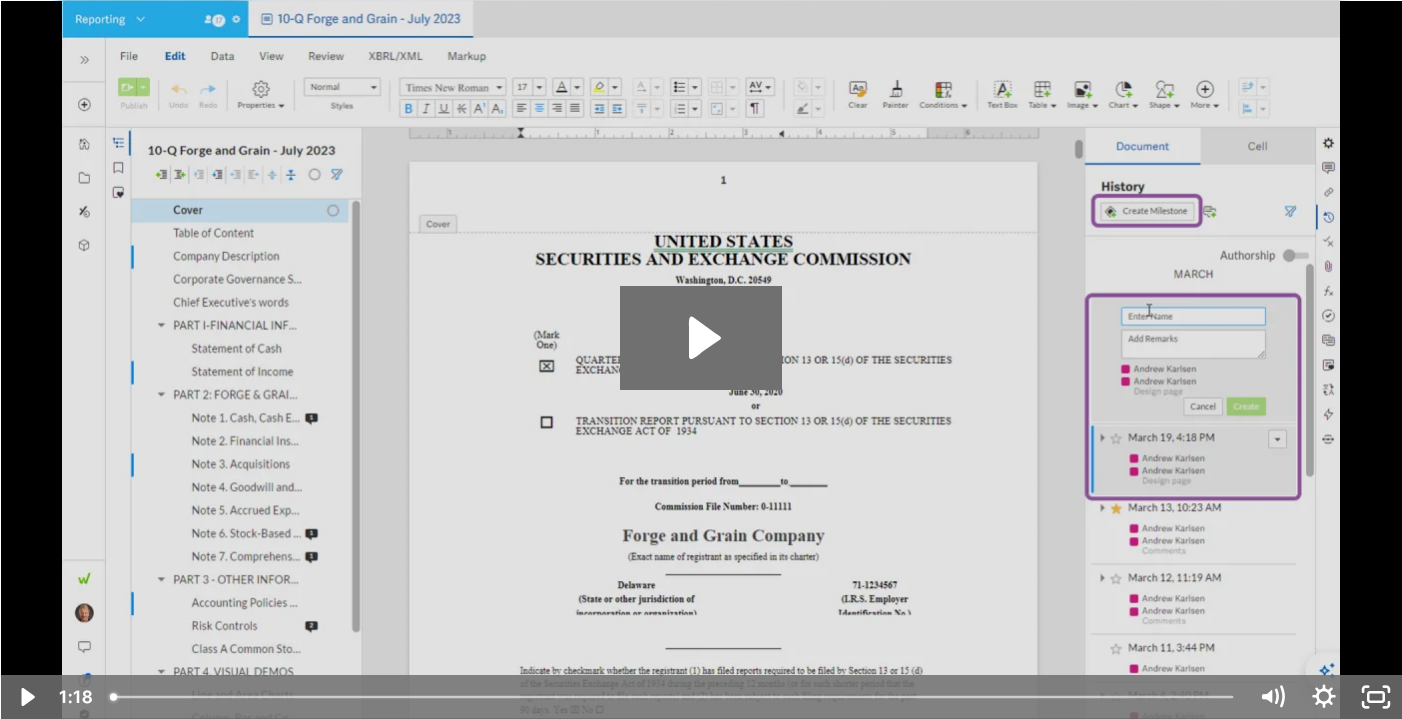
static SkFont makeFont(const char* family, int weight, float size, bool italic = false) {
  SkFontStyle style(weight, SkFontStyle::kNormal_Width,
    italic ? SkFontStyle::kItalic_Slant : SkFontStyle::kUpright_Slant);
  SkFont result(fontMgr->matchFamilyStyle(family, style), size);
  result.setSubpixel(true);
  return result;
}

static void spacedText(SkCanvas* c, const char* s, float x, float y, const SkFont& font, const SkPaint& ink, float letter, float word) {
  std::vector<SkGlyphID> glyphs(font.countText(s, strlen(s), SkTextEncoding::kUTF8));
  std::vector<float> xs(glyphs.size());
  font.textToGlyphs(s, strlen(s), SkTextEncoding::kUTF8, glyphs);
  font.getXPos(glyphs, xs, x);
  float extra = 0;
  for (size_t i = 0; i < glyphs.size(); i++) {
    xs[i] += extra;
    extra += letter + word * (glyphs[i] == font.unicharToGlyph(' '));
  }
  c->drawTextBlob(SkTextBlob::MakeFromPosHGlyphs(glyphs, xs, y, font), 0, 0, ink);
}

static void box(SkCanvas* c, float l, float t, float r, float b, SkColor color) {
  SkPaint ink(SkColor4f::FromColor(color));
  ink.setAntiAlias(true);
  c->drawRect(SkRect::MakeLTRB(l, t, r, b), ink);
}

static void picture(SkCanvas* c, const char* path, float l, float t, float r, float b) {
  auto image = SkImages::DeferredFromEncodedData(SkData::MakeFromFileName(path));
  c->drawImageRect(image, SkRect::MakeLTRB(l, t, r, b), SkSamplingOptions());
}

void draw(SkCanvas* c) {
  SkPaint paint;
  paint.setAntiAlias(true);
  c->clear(0xffffffff);
  picture(c, "img_01.png", 51, 0, 1350, 1);
  box(c, 1, 1, 1402, 719, 0xff000000);
  picture(c, "img_03.png", 53, 0, 1349, 1);
  picture(c, "img_02.png", 62, 0, 1340, 719);
  box(c, 620, 286, 782, 390, 0xff707070);
  paint.setColor(0xffffffff);
  c->drawPath(SkPathBuilder(SkPathFillType::kEvenOdd).moveTo(693, 317).cubicTo(688, 314, 689, 325, 689, 326).lineTo(689, 357).lineTo(690, 359).cubicTo(693, 360, 700, 354, 702, 352).lineTo(715, 343).cubicTo(723, 338, 723, 338, 715, 333).close().detach(), paint);
  box(c, 1, 675, 1402, 719, 0xd9707070);
  picture(c, "img_04.png", 21, 687, 35, 707);
  SkFont face1 = makeFont("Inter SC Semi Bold", 600, 17);
  spacedText(c, "1:18", 59, 703, face1, paint, 0.5f, 0);
  picture(c, "img_05.png", 107, 690, 1234, 704);
  picture(c, "img_06.png", 1261, 685, 1285, 708);
  picture(c, "img_07.png", 1312, 684, 1336, 708);
  picture(c, "img_08.png", 1361, 685, 1391, 709);
}
